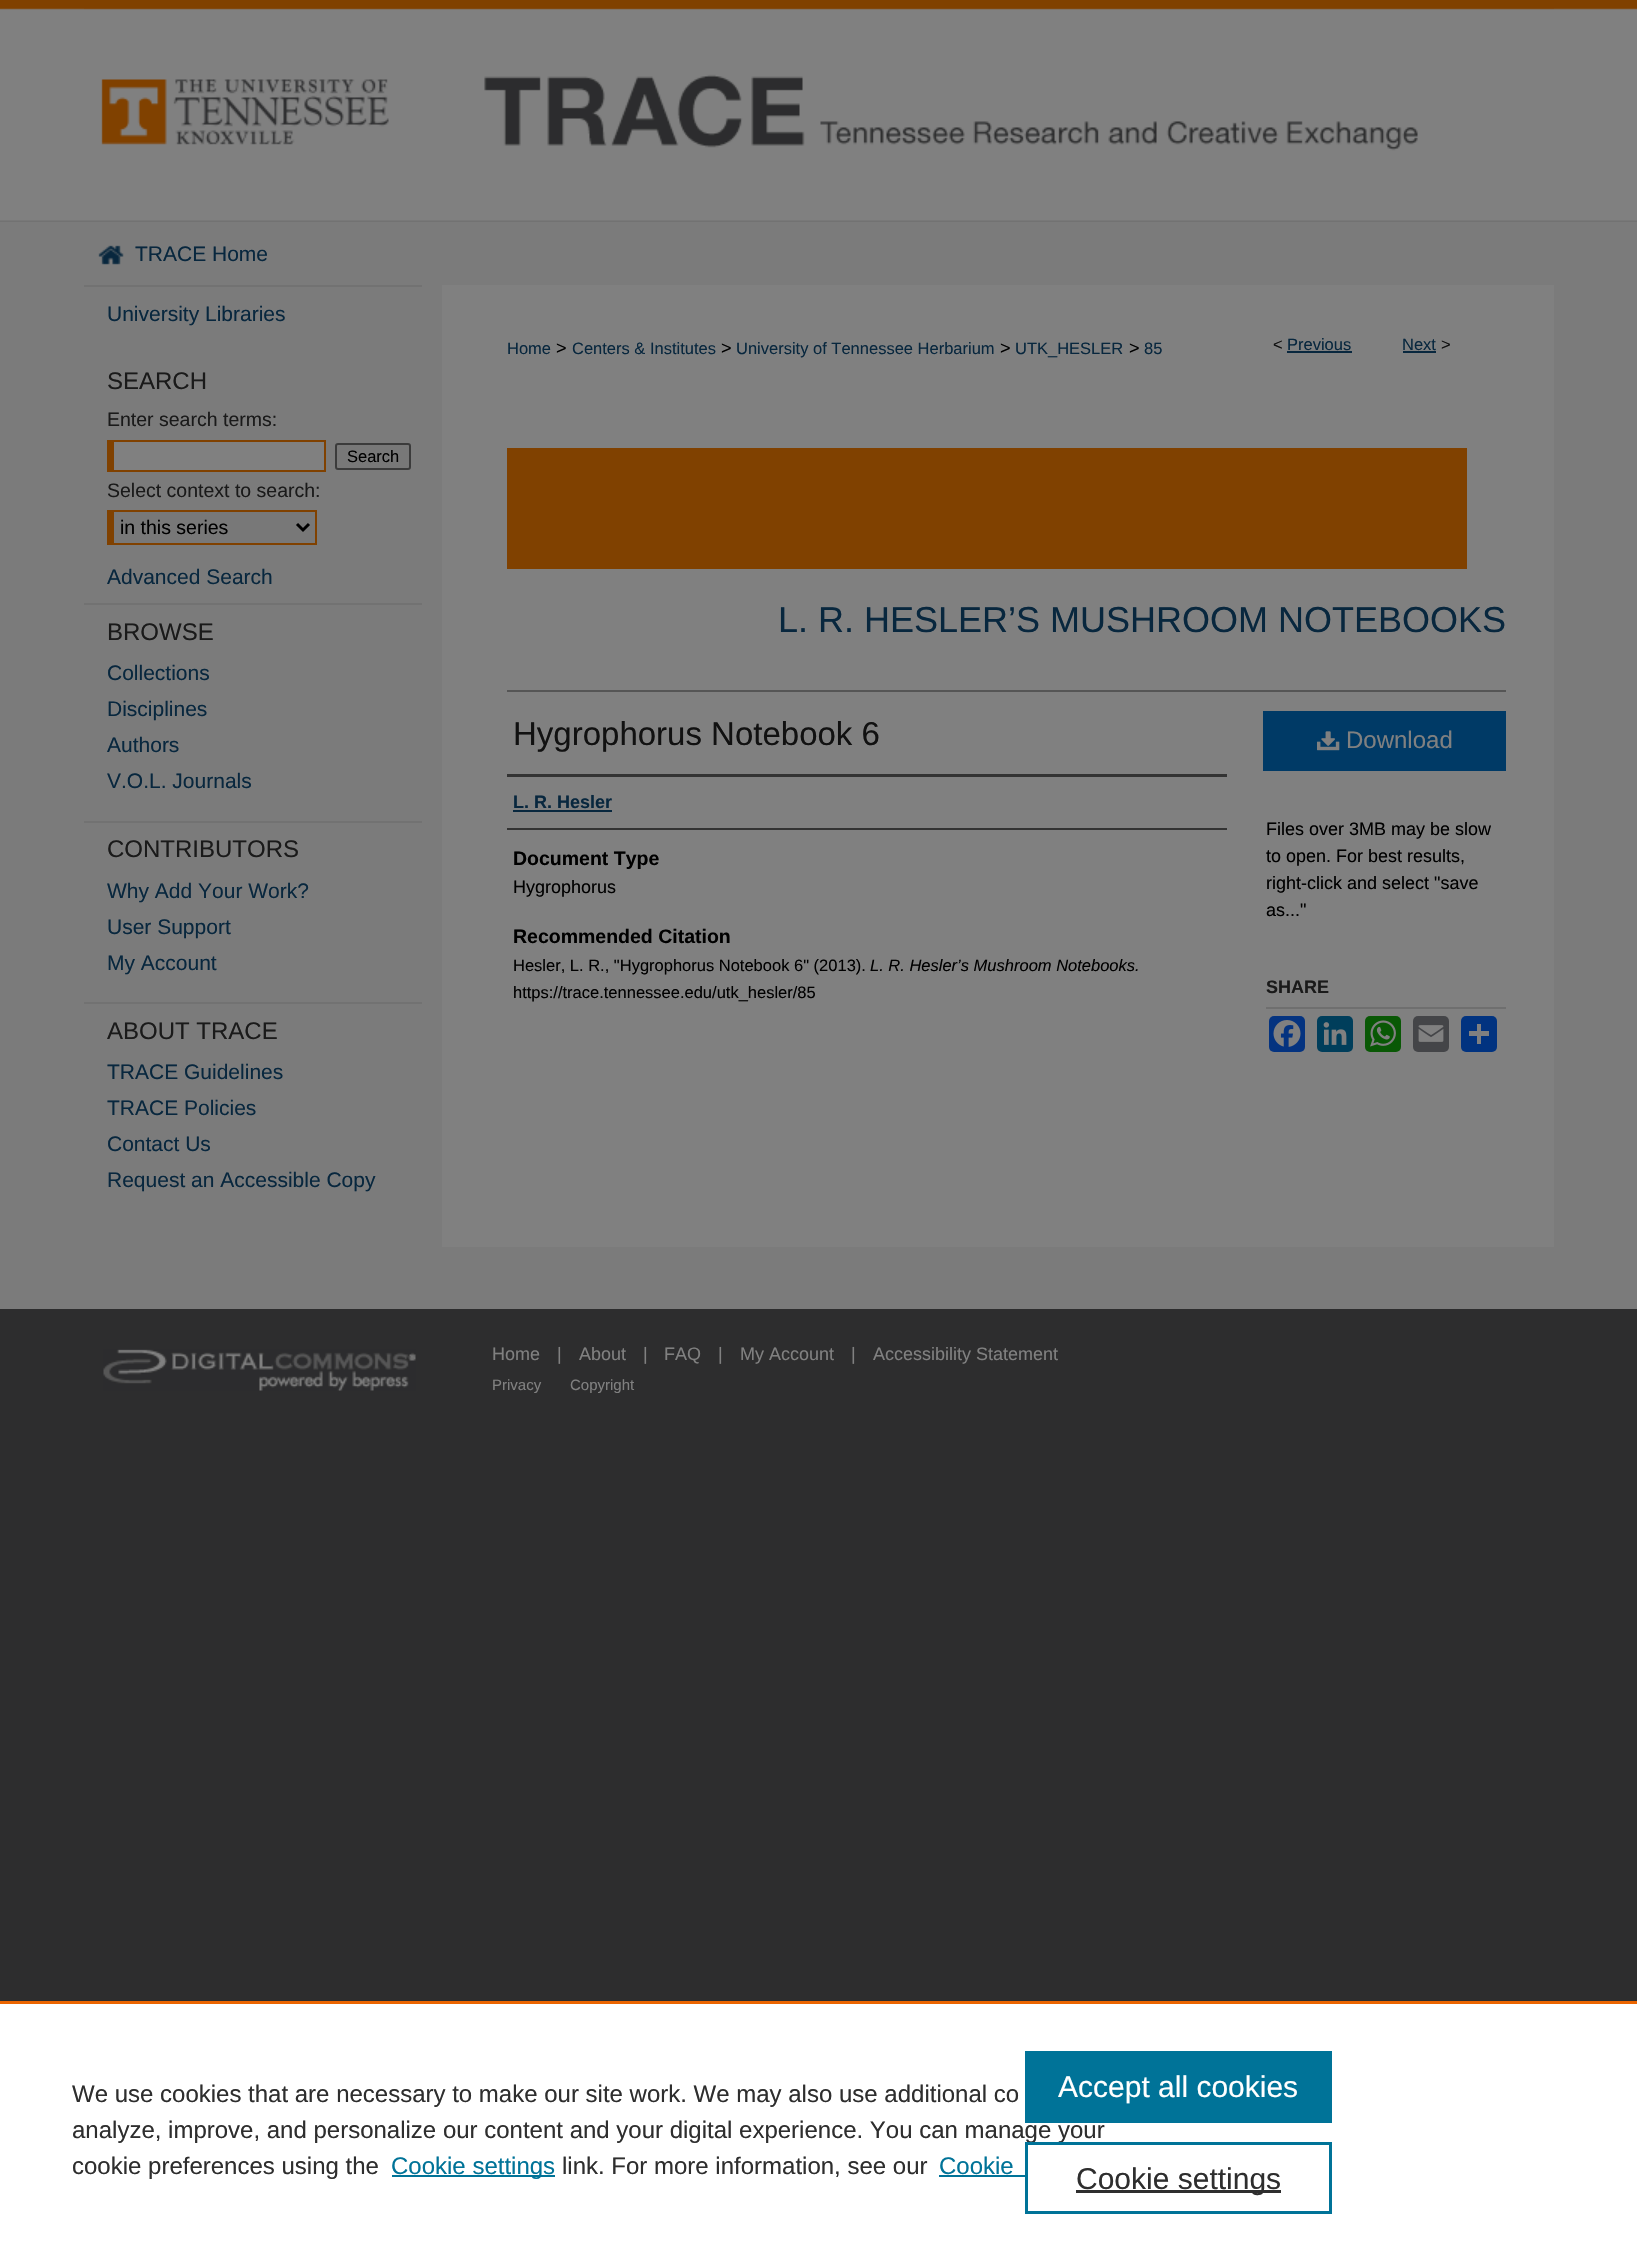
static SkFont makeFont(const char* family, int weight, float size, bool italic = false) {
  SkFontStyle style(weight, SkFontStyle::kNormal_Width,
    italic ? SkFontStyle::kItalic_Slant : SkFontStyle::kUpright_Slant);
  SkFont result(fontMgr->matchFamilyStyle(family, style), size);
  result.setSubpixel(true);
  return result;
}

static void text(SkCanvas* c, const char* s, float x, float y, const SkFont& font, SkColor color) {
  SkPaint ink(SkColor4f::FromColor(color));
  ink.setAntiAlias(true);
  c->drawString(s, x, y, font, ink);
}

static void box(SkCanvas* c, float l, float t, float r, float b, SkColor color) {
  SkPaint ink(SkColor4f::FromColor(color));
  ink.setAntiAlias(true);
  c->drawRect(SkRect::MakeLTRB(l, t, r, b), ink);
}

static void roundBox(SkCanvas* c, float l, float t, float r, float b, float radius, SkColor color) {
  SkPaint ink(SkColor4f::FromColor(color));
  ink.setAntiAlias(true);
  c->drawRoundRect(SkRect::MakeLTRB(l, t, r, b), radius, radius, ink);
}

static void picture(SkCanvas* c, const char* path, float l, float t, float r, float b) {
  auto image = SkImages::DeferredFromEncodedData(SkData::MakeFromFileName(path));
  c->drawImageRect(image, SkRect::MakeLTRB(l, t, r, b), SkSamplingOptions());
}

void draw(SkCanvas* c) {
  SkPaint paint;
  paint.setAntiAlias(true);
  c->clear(0xff2d2d2e);
  box(c, 0, 222, 1637, 1309, 0xff7b7b7b);
  picture(c, "img_01.png", 0, 0, 1637, 222);
  picture(c, "img_02.png", 84, 0, 1554, 222);
  picture(c, "img_03.png", 98, 245, 124, 265);
  SkFont face1 = makeFont("Liberation Sans", 400, 21);
  text(c, "TRACE Home", 135, 261, face1, 0xff08273e);
  box(c, 442, 285, 1554, 1247, 0xff808080);
  box(c, 84, 285, 422, 287, 0xff727272);
  text(c, "University Libraries", 107, 321, face1, 0xff08273e);
  SkFont face2 = makeFont("Liberation Sans", 400, 24);
  text(c, "SEARCH", 107, 389, face2, 0xff1a1a1a);
  SkFont face3 = makeFont("Liberation Sans", 400, 19.5f);
  text(c, "Enter search terms:", 107, 426, face3, 0xff1a1a1a);
  box(c, 114, 442, 324, 470, 0xff808080);
  box(c, 107, 440, 326, 442, 0xff804100);
  box(c, 324, 440, 326, 471, 0xff804100);
  box(c, 107, 470, 326, 472, 0xff804100);
  box(c, 107, 440, 114, 471, 0xff804100);
  paint.setColor(0xff787878);
  c->drawRoundRect(SkRect::MakeLTRB(336, 444, 410, 469), 2, 2, paint);
  paint.setStyle(SkPaint::kStroke_Style);
  paint.setStrokeWidth(2);
  paint.setColor(0xff3b3b3b);
  c->drawRoundRect(SkRect::MakeLTRB(336, 444, 410, 469), 2, 2, paint);
  SkFont face4 = makeFont("Liberation Sans", 400, 16.5f);
  text(c, "Search", 347, 462, face4, 0xff000000);
  text(c, "Select context to search:", 107, 497, face3, 0xff1a1a1a);
  box(c, 114, 512, 315, 543, 0xff787878);
  box(c, 107, 510, 317, 512, 0xff804100);
  box(c, 315, 510, 317, 545, 0xff804100);
  box(c, 107, 543, 317, 545, 0xff804100);
  box(c, 107, 510, 114, 545, 0xff804100);
  paint.setStrokeWidth(3);
  paint.setColor(0xff000000);
  c->drawPath(SkPathBuilder().moveTo(297, 524).lineTo(303, 530).lineTo(309, 524).detach(), paint);
  text(c, "in this series", 120, 534, face3, 0xff000000);
  text(c, "Advanced Search", 107, 584, face1, 0xff08273e);
  box(c, 84, 603, 422, 605, 0xff727272);
  text(c, "BROWSE", 107, 640, face2, 0xff1a1a1a);
  text(c, "Collections", 107, 680, face1, 0xff08273e);
  text(c, "Disciplines", 107, 716, face1, 0xff08273e);
  text(c, "Authors", 107, 752, face1, 0xff08273e);
  text(c, "V.O.L. Journals", 107, 788, face1, 0xff08273e);
  box(c, 84, 821, 422, 823, 0xff727272);
  text(c, "CONTRIBUTORS", 107, 857, face2, 0xff1a1a1a);
  text(c, "Why Add Your Work?", 107, 898, face1, 0xff08273e);
  text(c, "User Support", 107, 934, face1, 0xff08273e);
  text(c, "My Account", 107, 970, face1, 0xff08273e);
  box(c, 84, 1002, 422, 1004, 0xff727272);
  text(c, "ABOUT TRACE", 107, 1039, face2, 0xff1a1a1a);
  text(c, "TRACE Guidelines", 107, 1079, face1, 0xff08273e);
  text(c, "TRACE Policies", 107, 1115, face1, 0xff08273e);
  text(c, "Contact Us", 107, 1151, face1, 0xff08273e);
  text(c, "Request an Accessible Copy", 107, 1187, face1, 0xff08273e);
  text(c, "Home", 507, 354, face4, 0xff08273e);
  SkFont face5 = makeFont("Liberation Sans", 400, 18);
  text(c, ">", 556, 354, face5, 0xff000000);
  text(c, "Centers & Institutes", 572, 354, face4, 0xff08273e);
  text(c, ">", 721, 354, face5, 0xff000000);
  text(c, "University of Tennessee Herbarium", 736, 354, face4, 0xff08273e);
  text(c, ">", 1000, 354, face5, 0xff000000);
  text(c, "UTK_HESLER", 1015, 354, face4, 0xff08273e);
  text(c, ">", 1129, 354, face5, 0xff000000);
  text(c, "85", 1144, 354, face4, 0xff08273e);
  text(c, "<", 1273, 350, face4, 0xff111111);
  text(c, "Previous", 1287, 350, face4, 0xff08273e);
  box(c, 1287, 351, 1352, 353, 0xff08273e);
  text(c, "Next", 1402, 350, face4, 0xff08273e);
  box(c, 1403, 351, 1436, 353, 0xff08273e);
  text(c, ">", 1441, 350, face4, 0xff111111);
  box(c, 507, 448, 1467, 569, 0xff804100);
  SkFont face6 = makeFont("Liberation Sans", 400, 36);
  text(c, "L. R. HESLER’S MUSHROOM NOTEBOOKS", 778, 632, face6, 0xff08273e);
  box(c, 507, 690, 1506, 692, 0xff555555);
  SkFont face7 = makeFont("Liberation Sans", 400, 33);
  text(c, "Hygrophorus Notebook 6", 513, 745, face7, 0xff111111);
  box(c, 507, 774, 1227, 777, 0xff333333);
  box(c, 507, 828, 1227, 830, 0xff333333);
  SkFont face8 = makeFont("Liberation Sans", 700, 18);
  text(c, "L. R. Hesler", 513, 808, face8, 0xff08273e);
  box(c, 513, 810, 612, 812, 0xff08273e);
  SkFont face9 = makeFont("Liberation Sans", 700, 19.5f);
  text(c, "Document Type", 513, 865, face9, 0xff000000);
  text(c, "Hygrophorus", 513, 893, face5, 0xff000000);
  text(c, "Recommended Citation", 513, 943, face9, 0xff000000);
  text(c, "Hesler, L. R., \"Hygrophorus Notebook 6\" (2013).", 513, 971, face4, 0xff000000);
  SkFont face10 = makeFont("Liberation Sans", 400, 16.5f, true);
  text(c, "L. R. Hesler’s Mushroom Notebooks.", 870, 971, face10, 0xff000000);
  text(c, "https://trace.tennessee.edu/utk_hesler/85", 513, 998, face4, 0xff000000);
  box(c, 1263, 711, 1506, 771, 0xff003a66);
  picture(c, "img_04.png", 1317, 731, 1340, 751);
  text(c, "Download", 1346, 748, face2, 0xff808080);
  text(c, "Files over 3MB may be slow", 1266, 835, face5, 0xff000000);
  text(c, "to open. For best results,", 1266, 862, face5, 0xff000000);
  text(c, "right-click and select \"save", 1266, 889, face5, 0xff000000);
  text(c, "as...\"", 1266, 916, face5, 0xff000000);
  box(c, 1266, 1007, 1506, 1009, 0xff6f6f6f);
  text(c, "SHARE", 1266, 993, face8, 0xff1a1a1a);
  roundBox(c, 1269, 1016, 1305, 1052, 5, 0xff043380);
  picture(c, "img_05.png", 1273, 1020, 1301, 1047);
  roundBox(c, 1317, 1016, 1353, 1052, 5, 0xff003e5b);
  picture(c, "img_06.png", 1323, 1022, 1347, 1045);
  roundBox(c, 1365, 1016, 1401, 1052, 5, 0xff095805);
  picture(c, "img_07.png", 1370, 1020, 1396, 1047);
  roundBox(c, 1413, 1016, 1449, 1052, 5, 0xff444548);
  picture(c, "img_08.png", 1418, 1025, 1444, 1042);
  roundBox(c, 1461, 1016, 1497, 1052, 5, 0xff013380);
  box(c, 1477, 1024, 1481, 1044, 0xff808080);
  box(c, 1469, 1031, 1489, 1036, 0xff808080);
  picture(c, "img_09.png", 103, 1349, 416, 1391);
  text(c, "Home", 492, 1360, face5, 0xff808080);
  text(c, "|", 557, 1360, face5, 0xff808080);
  text(c, "About", 579, 1360, face5, 0xff808080);
  text(c, "|", 643, 1360, face5, 0xff808080);
  text(c, "FAQ", 664, 1360, face5, 0xff808080);
  text(c, "|", 718, 1360, face5, 0xff808080);
  text(c, "My Account", 740, 1360, face5, 0xff808080);
  text(c, "|", 851, 1360, face5, 0xff808080);
  text(c, "Accessibility Statement", 873, 1360, face5, 0xff808080);
  SkFont face11 = makeFont("Liberation Sans", 400, 15);
  text(c, "Privacy", 492, 1390, face11, 0xff808080);
  text(c, "Copyright", 570, 1390, face11, 0xff808080);
  box(c, 0, 2004, 1637, 2256, 0xffffffff);
  box(c, 0, 2001, 1637, 2004, 0xffeb6500);
  text(c, "We use cookies that are necessary to make our site work. We may also use additional co", 72, 2102, face2, 0xff2e2e2e);
  text(c, "analyze, improve, and personalize our content and your digital experience. You can manage your", 72, 2138, face2, 0xff2e2e2e);
  text(c, "cookie preferences using the", 72, 2174, face2, 0xff2e2e2e);
  box(c, 392, 2175, 555, 2177, 0xff007398);
  text(c, "Cookie settings", 391, 2174, face2, 0xff007398);
  text(c, "link. For more information, see our", 562, 2174, face2, 0xff2e2e2e);
  text(c, "Cookie", 939, 2174, face2, 0xff007398);
  box(c, 939, 2175, 1025, 2177, 0xff007398);
  box(c, 1025, 2051, 1332, 2123, 0xff007398);
  SkFont face12 = makeFont("Liberation Sans", 400, 30);
  text(c, "Accept all cookies", 1058, 2097, face12, 0xffffffff);
  paint.setColor(0xff007398);
  c->drawRect(SkRect::MakeLTRB(1026.5f, 2143.5f, 1330.5f, 2212.5f), paint);
  box(c, 1076, 2190, 1281, 2193, 0xff2e2e2e);
  text(c, "Cookie settings", 1076, 2189, face12, 0xff2e2e2e);
}
